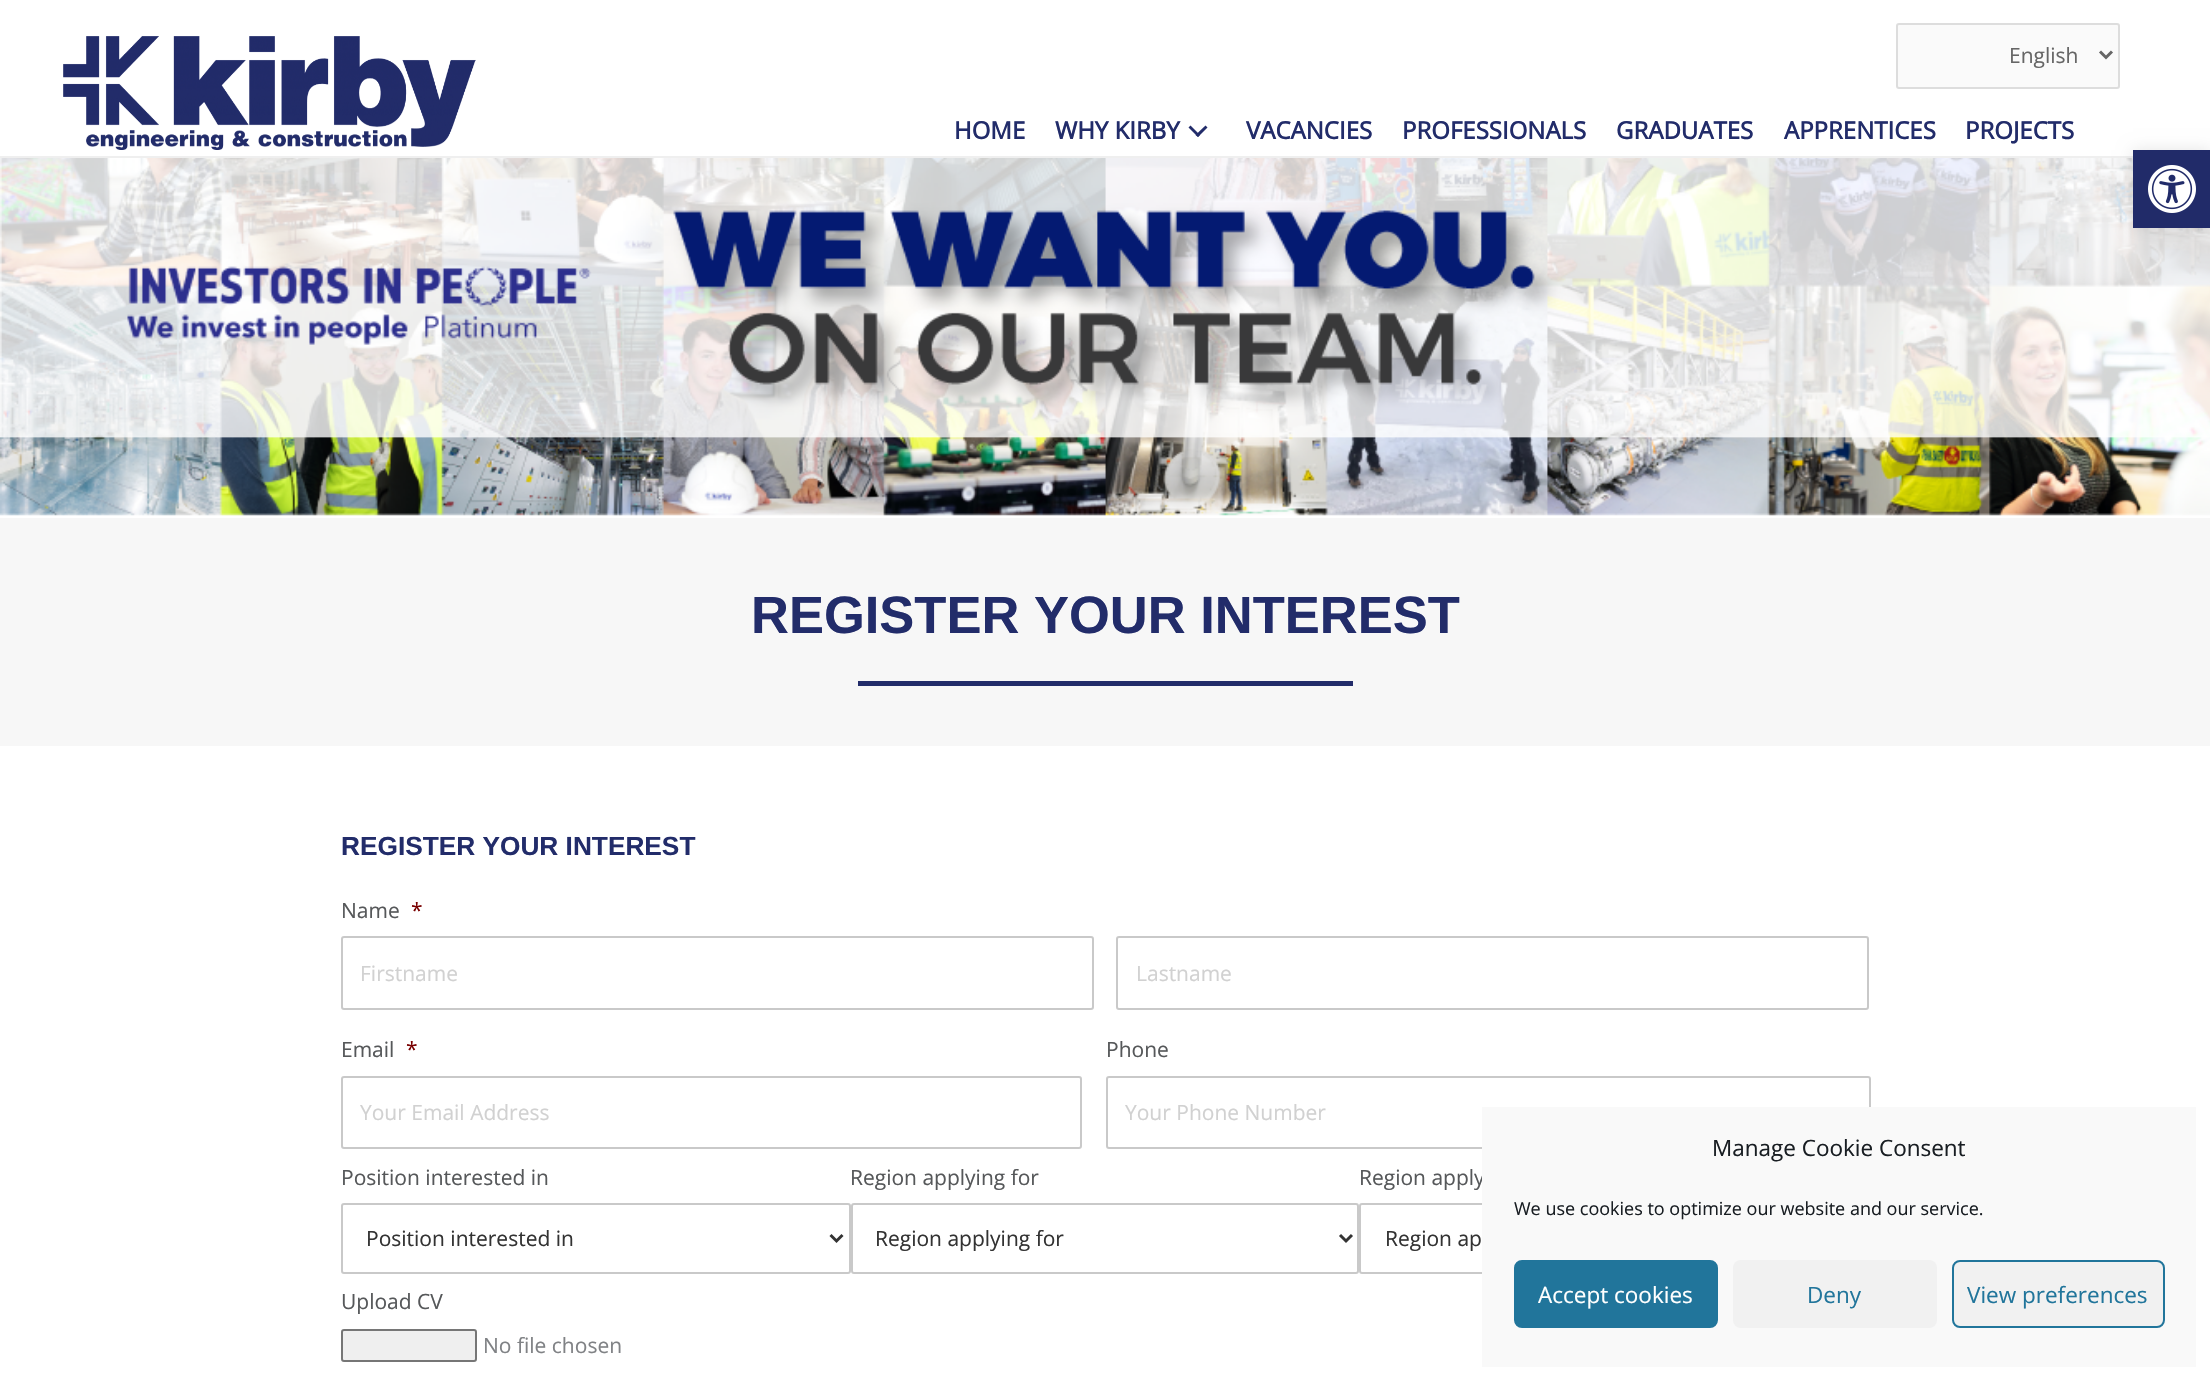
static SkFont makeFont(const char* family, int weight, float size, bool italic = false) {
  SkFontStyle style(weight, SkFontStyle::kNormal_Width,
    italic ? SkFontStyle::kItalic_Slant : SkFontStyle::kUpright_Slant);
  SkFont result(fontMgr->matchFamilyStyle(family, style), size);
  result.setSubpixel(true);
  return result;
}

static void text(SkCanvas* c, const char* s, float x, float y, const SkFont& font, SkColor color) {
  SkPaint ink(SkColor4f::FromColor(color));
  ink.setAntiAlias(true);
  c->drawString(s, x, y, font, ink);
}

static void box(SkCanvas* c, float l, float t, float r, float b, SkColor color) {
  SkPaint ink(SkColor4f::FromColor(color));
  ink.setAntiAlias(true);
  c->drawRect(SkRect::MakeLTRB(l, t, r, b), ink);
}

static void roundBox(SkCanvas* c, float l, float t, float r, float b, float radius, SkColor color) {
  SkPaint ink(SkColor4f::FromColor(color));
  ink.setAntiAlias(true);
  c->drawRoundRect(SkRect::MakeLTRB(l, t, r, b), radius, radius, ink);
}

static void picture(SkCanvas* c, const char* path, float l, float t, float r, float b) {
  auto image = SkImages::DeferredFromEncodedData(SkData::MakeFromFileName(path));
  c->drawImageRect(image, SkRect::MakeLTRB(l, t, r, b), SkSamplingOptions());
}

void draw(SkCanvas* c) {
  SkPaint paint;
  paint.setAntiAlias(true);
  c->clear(0xffffffff);
  box(c, 0, 156, 2133, 158, 0xffefefef);
  picture(c, "img_01.png", 63, 36, 476, 150);
  paint.setColor(0xfffafafa);
  c->drawRoundRect(SkRect::MakeLTRB(1897, 24, 2119, 88), 2, 2, paint);
  paint.setStyle(SkPaint::kStroke_Style);
  paint.setStrokeWidth(2);
  paint.setColor(0xffdddddd);
  c->drawRoundRect(SkRect::MakeLTRB(1897, 24, 2119, 88), 2, 2, paint);
  paint.setStrokeWidth(3);
  paint.setColor(0xff666666);
  c->drawPath(SkPathBuilder().moveTo(2100, 51.5f).lineTo(2106, 57.5f).lineTo(2112, 51.5f).detach(), paint);
  SkFont face1 = makeFont("Open Sans", 400, 21);
  text(c, "English", 2009, 63, face1, 0xff666666);
  SkFont face2 = makeFont("Open Sans", 700, 24);
  text(c, "HOME", 954, 139, face2, 0xff222c6a);
  text(c, "WHY KIRBY", 1055, 139, face2, 0xff222c6a);
  paint.setStyle(SkPaint::kFill_Style);
  paint.setColor(0xff222c6a);
  c->drawPath(SkPathBuilder().moveTo(1205.5f, 125.5f).lineTo(1207.5f, 127.5f).lineTo(1198, 137).lineTo(1195.5f, 135).close().detach(), paint);
  c->drawPath(SkPathBuilder().moveTo(1190.5f, 125.5f).lineTo(1200, 135).lineTo(1198, 137).lineTo(1188.5f, 127.5f).close().detach(), paint);
  text(c, "VACANCIES", 1246, 139, face2, 0xff222c6a);
  text(c, "PROFESSIONALS", 1402, 139, face2, 0xff222c6a);
  text(c, "GRADUATES", 1616, 139, face2, 0xff222c6a);
  text(c, "APPRENTICES", 1784, 139, face2, 0xff222c6a);
  text(c, "PROJECTS", 1965, 139, face2, 0xff222c6a);
  picture(c, "img_02.png", 0, 158, 2210, 516);
  box(c, 0, 518, 2210, 746, 0xfff7f7f7);
  SkFont face3 = makeFont("Liberation Sans", 700, 52.5f);
  text(c, "REGISTER YOUR INTEREST", 751, 633, face3, 0xff222c6a);
  box(c, 858, 681, 1353, 686, 0xff222c6a);
  SkFont face4 = makeFont("Liberation Sans", 700, 26.25f);
  text(c, "REGISTER YOUR INTEREST", 341, 855, face4, 0xff222c6a);
  text(c, "Name", 341, 918, face1, 0xff56585a);
  text(c, "*", 411, 918, face1, 0xff790000);
  paint.setStyle(SkPaint::kStroke_Style);
  paint.setStrokeWidth(2);
  paint.setColor(0xffc9c9c9);
  c->drawRoundRect(SkRect::MakeLTRB(342, 937, 1093, 1009), 2, 2, paint);
  text(c, "Firstname", 360, 981, face1, 0xffd1d1d1);
  c->drawRoundRect(SkRect::MakeLTRB(1117, 937, 1868, 1009), 2, 2, paint);
  text(c, "Lastname", 1136, 981, face1, 0xffd1d1d1);
  text(c, "Email", 341, 1057, face1, 0xff56585a);
  text(c, "*", 406, 1057, face1, 0xff790000);
  c->drawRoundRect(SkRect::MakeLTRB(342, 1077, 1081, 1148), 2, 2, paint);
  text(c, "Your Email Address", 360, 1120, face1, 0xffd1d1d1);
  text(c, "Phone", 1106, 1057, face1, 0xff56585a);
  c->drawRoundRect(SkRect::MakeLTRB(1107, 1077, 1870, 1148), 2, 2, paint);
  text(c, "Your Phone Number", 1125, 1120, face1, 0xffd1d1d1);
  text(c, "Position interested in", 341, 1185, face1, 0xff56585a);
  c->drawRoundRect(SkRect::MakeLTRB(342, 1204, 850, 1273), 2, 2, paint);
  paint.setStrokeWidth(3);
  paint.setColor(0xff333333);
  c->drawPath(SkPathBuilder().moveTo(830.5f, 1235).lineTo(836.5f, 1241).lineTo(842.5f, 1235).detach(), paint);
  text(c, "Position interested in", 366, 1246, face1, 0xff333333);
  text(c, "Region applying for", 850, 1185, face1, 0xff56585a);
  paint.setStrokeWidth(2);
  paint.setColor(0xffc9c9c9);
  c->drawRoundRect(SkRect::MakeLTRB(852, 1204, 1358, 1273), 2, 2, paint);
  paint.setStrokeWidth(3);
  paint.setColor(0xff333333);
  c->drawPath(SkPathBuilder().moveTo(1340, 1235).lineTo(1346, 1241).lineTo(1352, 1235).detach(), paint);
  text(c, "Region applying for", 875, 1246, face1, 0xff333333);
  text(c, "Region apply", 1359, 1185, face1, 0xff56585a);
  paint.setStrokeWidth(2);
  paint.setColor(0xffc9c9c9);
  c->drawRoundRect(SkRect::MakeLTRB(1360, 1204, 1870, 1273), 2, 2, paint);
  text(c, "Region ap", 1385, 1246, face1, 0xff333333);
  text(c, "Upload CV", 341, 1309, face1, 0xff56585a);
  paint.setStyle(SkPaint::kFill_Style);
  paint.setColor(0xffefefef);
  c->drawRoundRect(SkRect::MakeLTRB(342, 1330, 476, 1361), 2, 2, paint);
  paint.setStyle(SkPaint::kStroke_Style);
  paint.setColor(0xff767676);
  c->drawRoundRect(SkRect::MakeLTRB(342, 1330, 476, 1361), 2, 2, paint);
  text(c, "No file chosen", 483, 1353, face1, 0xff808285);
  paint.setStyle(SkPaint::kFill_Style);
  paint.setColor(0x1a000000);
  paint.setMaskFilter(SkMaskFilter::MakeBlur(kNormal_SkBlurStyle, 7.5f));
  c->drawRect(SkRect::MakeLTRB(2133, 150, 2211, 228), paint);
  paint.setMaskFilter(nullptr);
  box(c, 2133, 150, 2210, 228, 0xff212b69);
  picture(c, "img_03.png", 2148, 165, 2196, 213);
  box(c, 1482, 1107, 2196, 1367, 0xfff9f9f9);
  SkFont face5 = makeFont("Open Sans", 400, 22.5f);
  text(c, "Manage Cookie Consent", 1712, 1156, face5, 0xff191e23);
  SkFont face6 = makeFont("Open Sans", 400, 18);
  text(c, "We use cookies to optimize our website and our service.", 1514, 1215, face6, 0xff191e23);
  paint.setColor(0xff21759b);
  c->drawRoundRect(SkRect::MakeLTRB(1515, 1261, 1717, 1327), 7, 7, paint);
  paint.setStyle(SkPaint::kStroke_Style);
  c->drawRoundRect(SkRect::MakeLTRB(1515, 1261, 1717, 1327), 7, 7, paint);
  text(c, "Accept cookies", 1538, 1303, face5, 0xffffffff);
  roundBox(c, 1733, 1260, 1937, 1328, 8, 0xfff1f1f1);
  text(c, "Deny", 1807, 1303, face5, 0xff21759b);
  paint.setStyle(SkPaint::kFill_Style);
  paint.setColor(0xfff1f1f1);
  c->drawRoundRect(SkRect::MakeLTRB(1953, 1261, 2164, 1327), 7, 7, paint);
  paint.setStyle(SkPaint::kStroke_Style);
  paint.setColor(0xff21759b);
  c->drawRoundRect(SkRect::MakeLTRB(1953, 1261, 2164, 1327), 7, 7, paint);
  text(c, "View preferences", 1967, 1303, face5, 0xff21759b);
}
